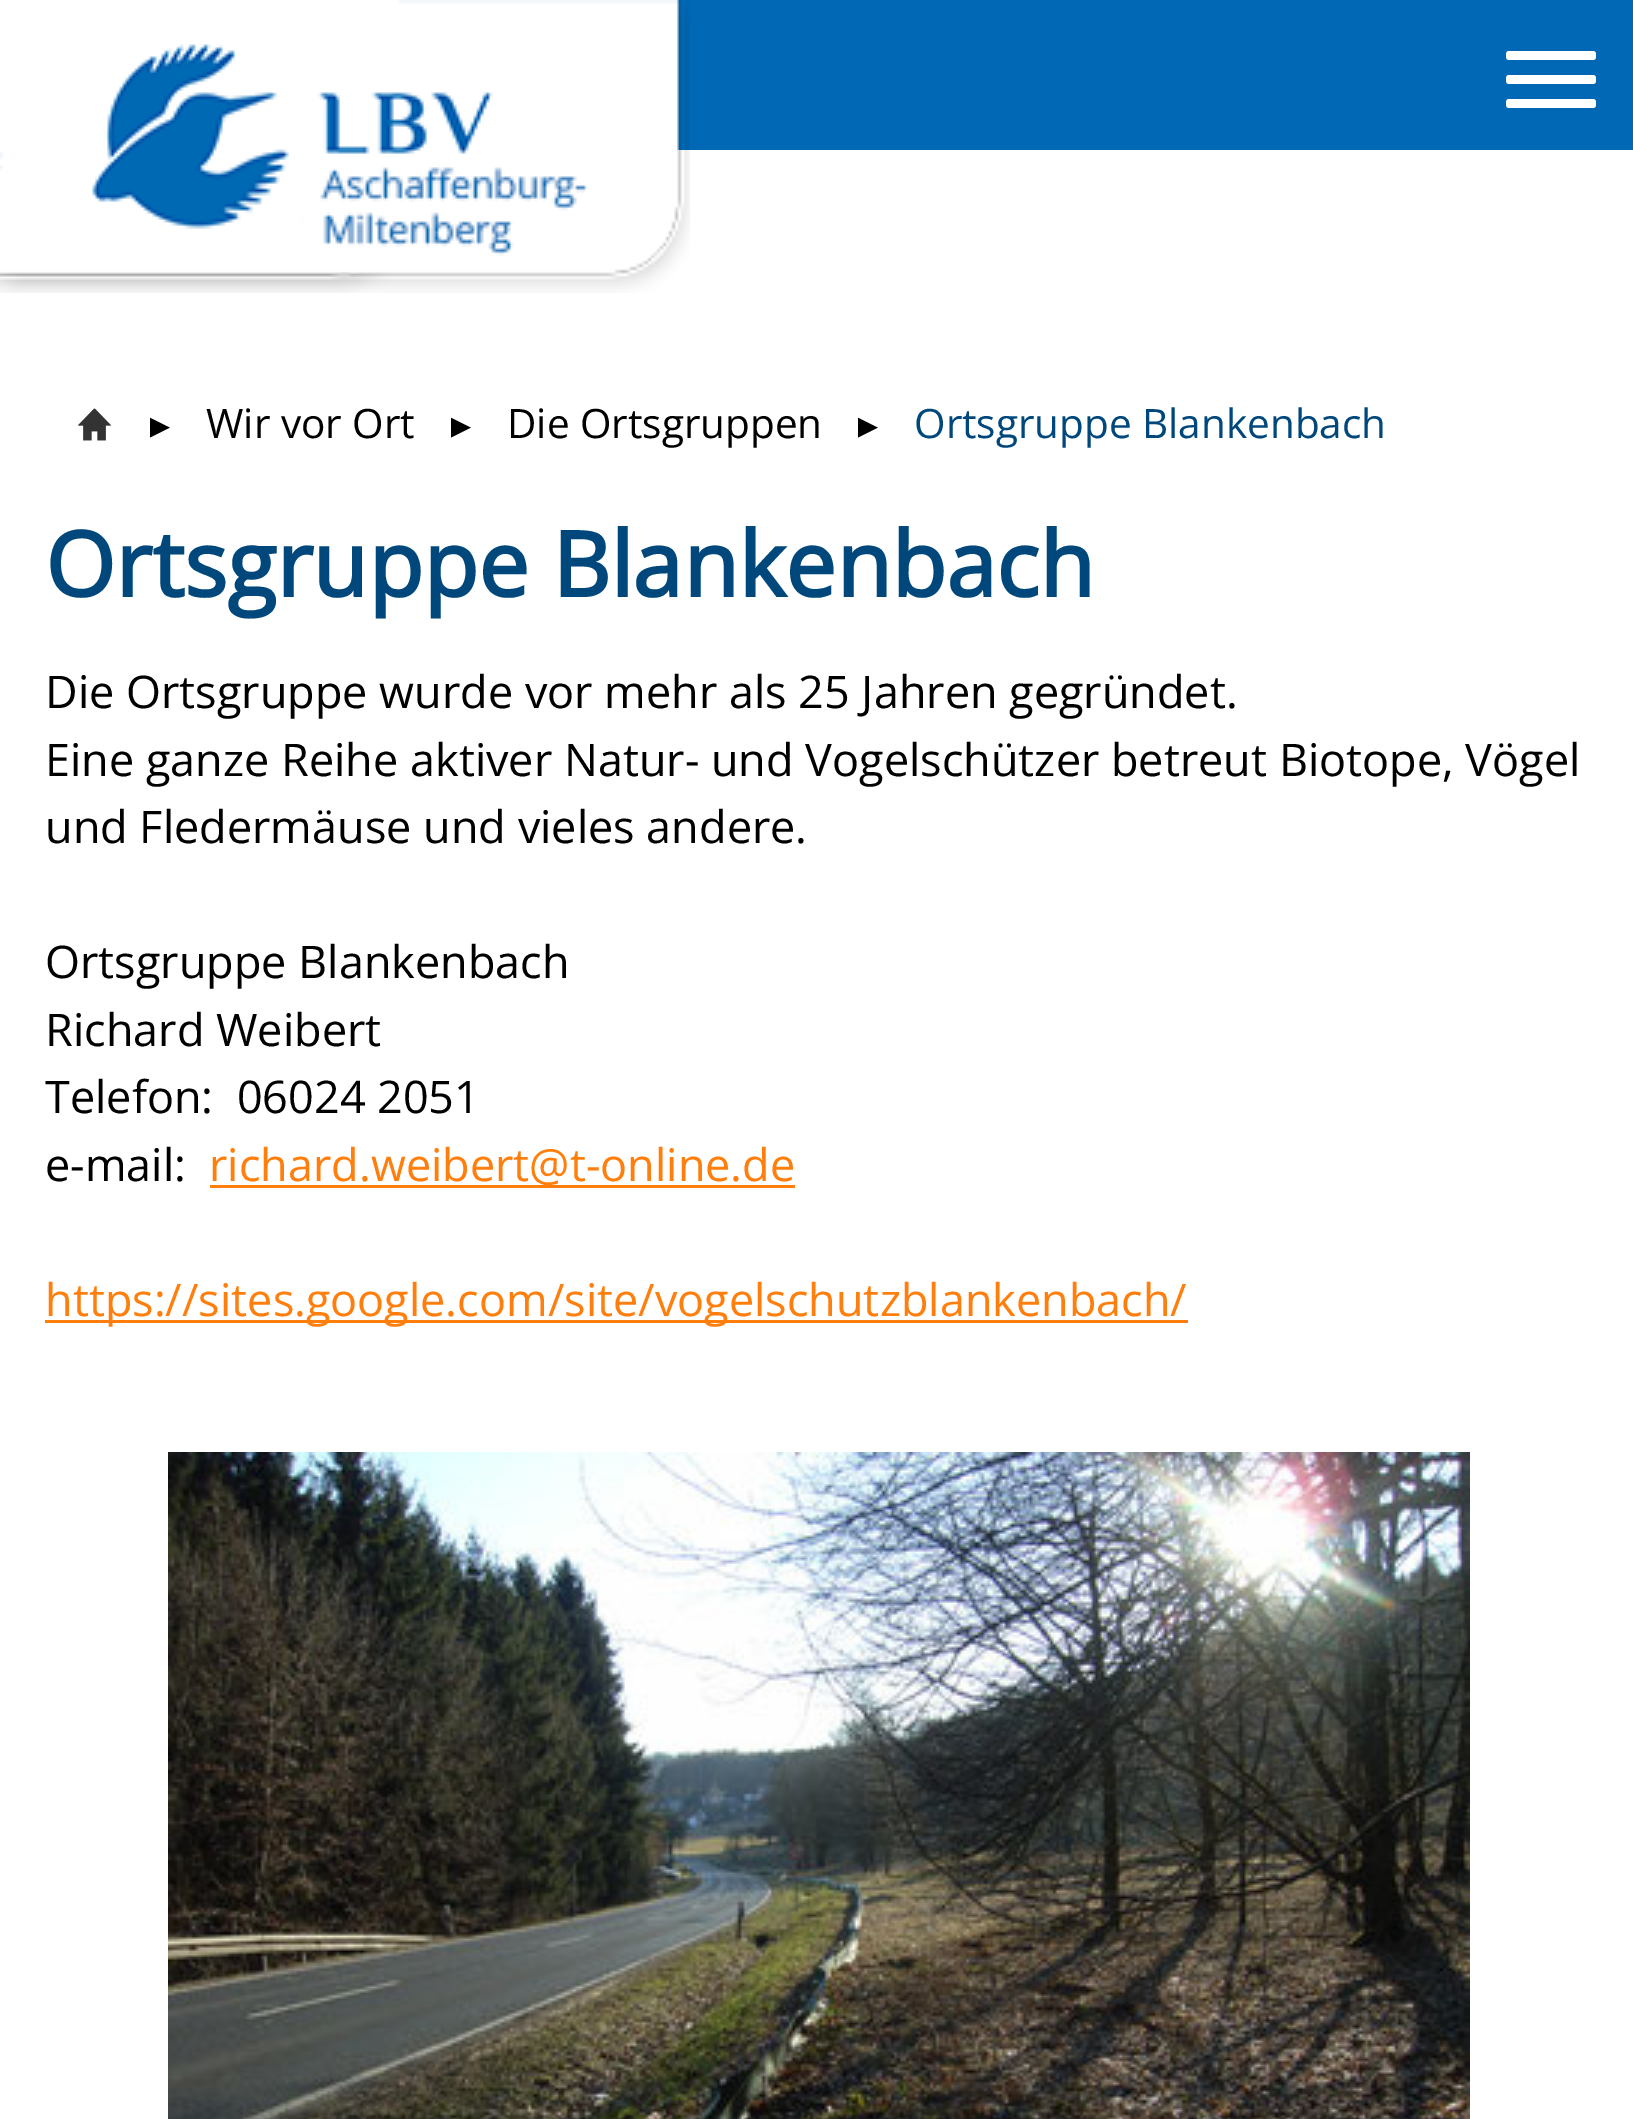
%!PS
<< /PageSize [1633 2119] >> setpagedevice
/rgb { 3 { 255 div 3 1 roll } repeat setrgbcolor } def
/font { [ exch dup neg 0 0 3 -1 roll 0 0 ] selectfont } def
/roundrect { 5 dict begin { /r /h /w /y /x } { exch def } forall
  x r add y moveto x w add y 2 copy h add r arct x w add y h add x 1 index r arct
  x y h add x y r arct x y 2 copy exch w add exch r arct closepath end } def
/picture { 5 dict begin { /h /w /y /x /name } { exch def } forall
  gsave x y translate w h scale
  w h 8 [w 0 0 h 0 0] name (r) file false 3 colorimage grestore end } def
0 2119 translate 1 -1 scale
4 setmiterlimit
255 255 255 rgb
0 0 1633 2119 rectfill
0 104 180 rgb
0 0 1633 150 rectfill
(img/1.rgb) 0 0 403 293 picture
(img/2.rgb) 0 0 690 293 picture
255 255 255 rgb
1506 51 90 9 3 roundrect fill
1506 75 90 9 3 roundrect fill
1506 99 90 9 3 roundrect fill
(img/3.rgb) 78 408 33 33 picture
255 126 12 rgb
210 1185 585 3 rectfill
45 1320 1143 3 rectfill
(img/4.rgb) 168 1452 1302 667 picture
/DejaVuSans-Regular 40 font
0 0 0 rgb
150 438 moveto (▸) show
/OpenSans-Regular 40.5 font
206 438 moveto (Wir vor Ort) show
/DejaVuSans-Regular 40 font
451 438 moveto (▸) show
/OpenSans-Regular 40.5 font
507 438 moveto (Die Ortsgruppen) show
/DejaVuSans-Regular 40 font
858 438 moveto (▸) show
/OpenSans-Regular 40.5 font
0 71 124 rgb
914 438 moveto (Ortsgruppe Blankenbach) show
/OpenSans-Bold 90 font
45 597 moveto (Ortsgruppe Blankenbach) show
/OpenSans-Regular 45 font
0 0 0 rgb
[
  [(Die Ortsgruppe wurde vor mehr als 25 Jahren gegründet.) 45 708]
  [(Eine ganze Reihe aktiver Natur- und Vogelschützer betreut Biotope, Vögel) 45 776]
  [(und Fledermäuse und vieles andere.) 45 843]
  [(Ortsgruppe Blankenbach) 45 978]
  [(Richard Weibert) 45 1046]
  [(Telefon:  06024 2051) 45 1113]
  [(e-mail:) 45 1181]
] { aload pop moveto show } forall
255 126 12 rgb
209 1181 moveto (richard.weibert@t-online.de) show
45 1316 moveto (https://sites.google.com/site/vogelschutzblankenbach/) show
showpage
